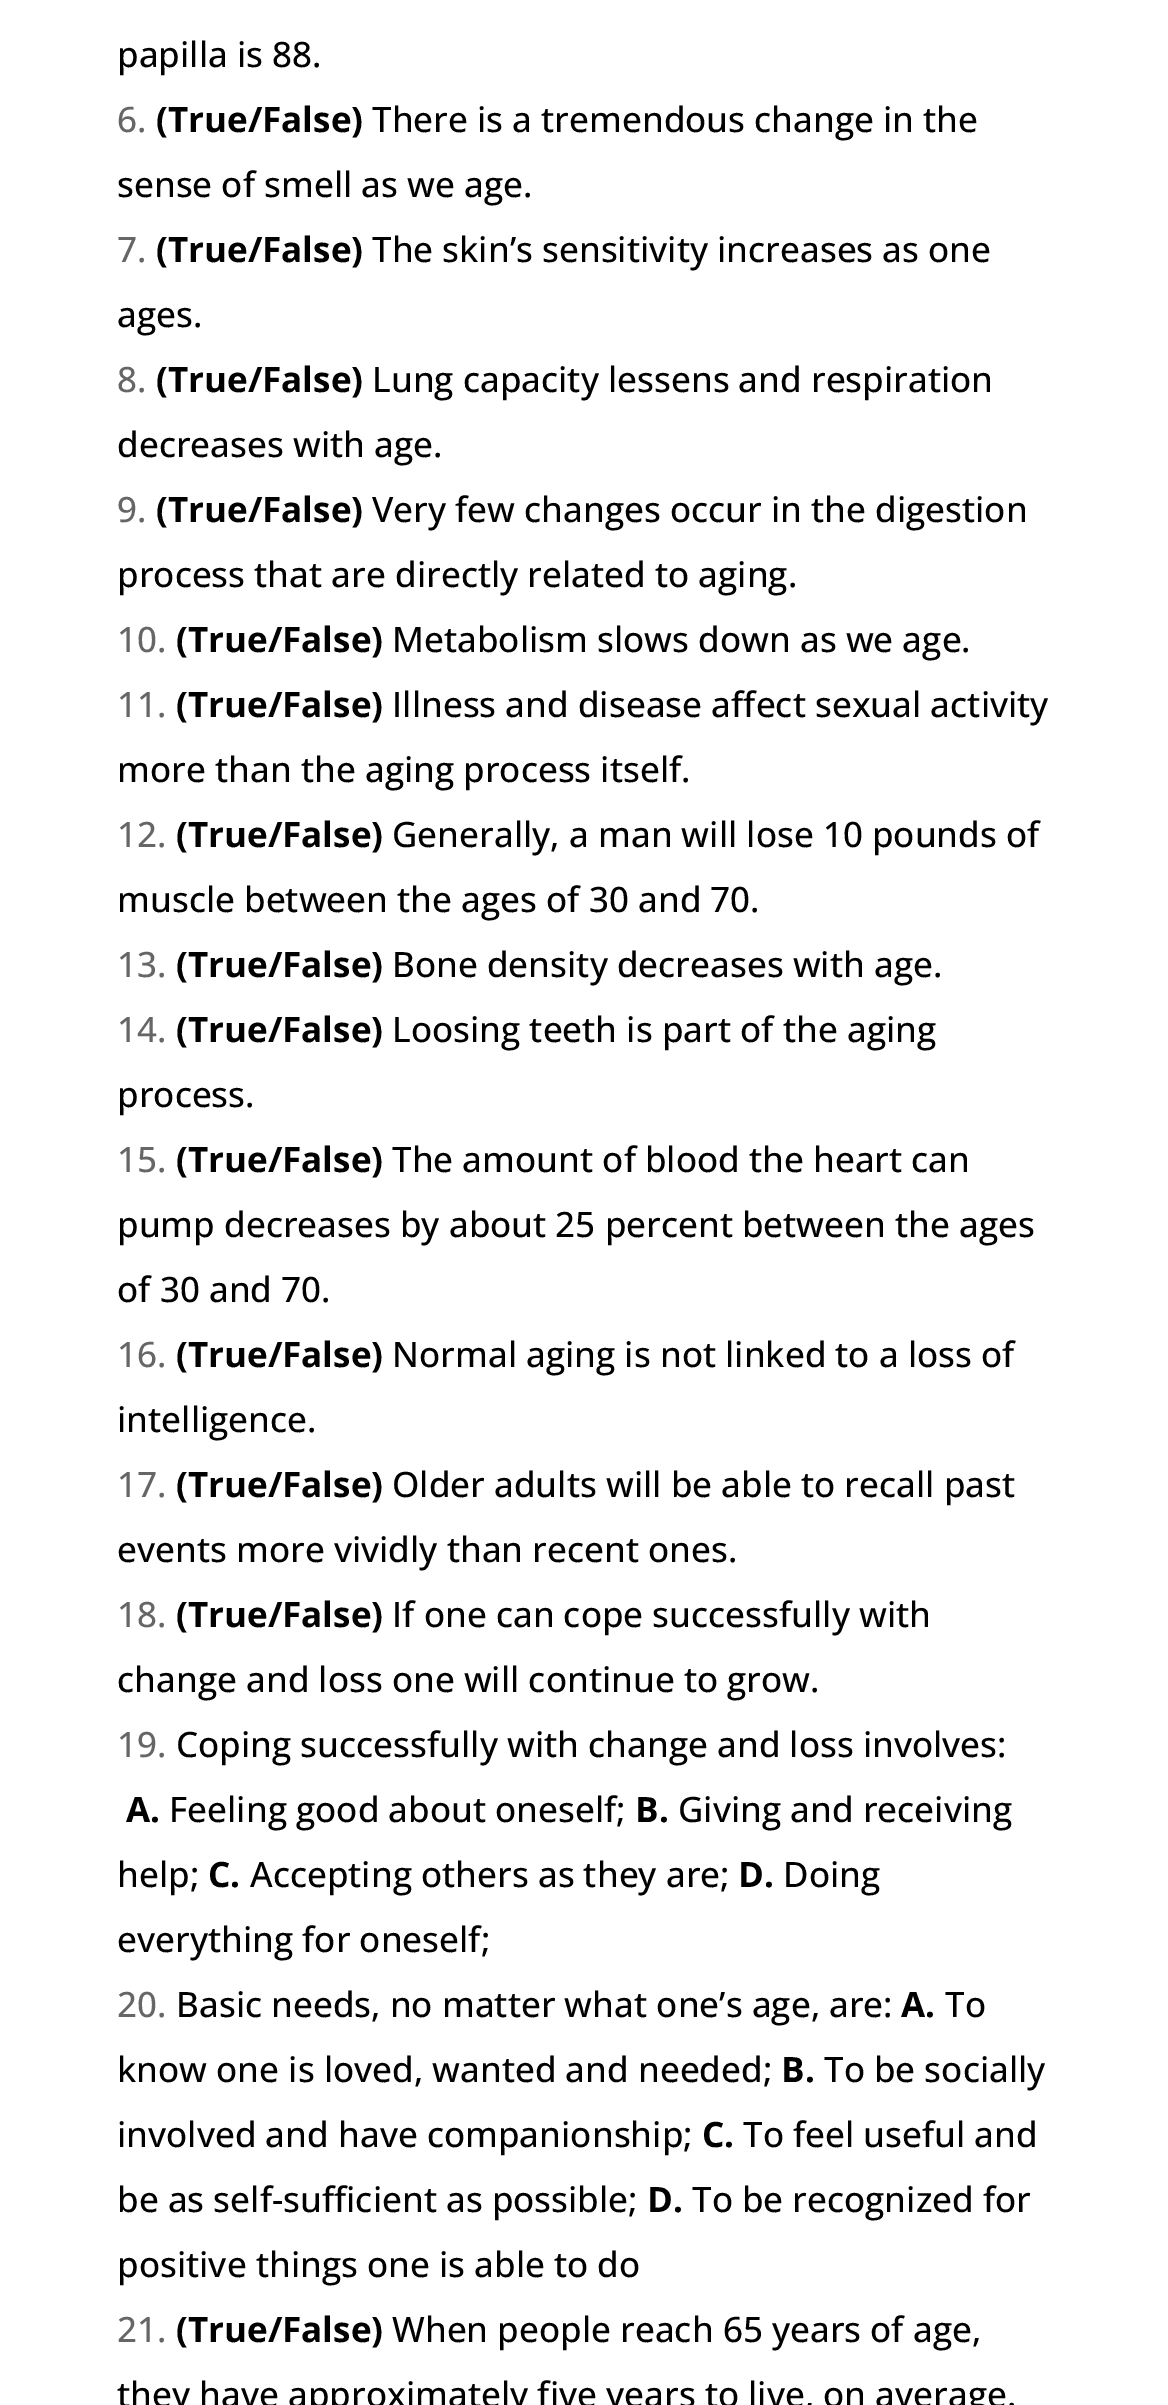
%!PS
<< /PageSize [1168 2405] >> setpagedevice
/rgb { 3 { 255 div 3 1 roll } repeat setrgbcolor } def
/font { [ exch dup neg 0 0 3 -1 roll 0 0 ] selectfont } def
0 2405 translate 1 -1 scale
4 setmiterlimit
255 255 255 rgb
0 0 1168 2405 rectfill
/OpenSans-Medium 35 font
0 0 0 rgb
117 67 moveto (papilla is 88.) show
102 102 102 rgb
117 132 moveto (6.) show
/OpenSans-Bold 35 font
0 0 0 rgb
156 132 moveto (\(True/False\)) show
/OpenSans-Medium 35 font
372 132 moveto (There is a tremendous change in the) show
117 197 moveto (sense of smell as we age.) show
102 102 102 rgb
117 262 moveto (7.) show
/OpenSans-Bold 35 font
0 0 0 rgb
156 262 moveto (\(True/False\)) show
/OpenSans-Medium 35 font
372 262 moveto (The skin’s sensitivity increases as one) show
117 327 moveto (ages.) show
102 102 102 rgb
117 392 moveto (8.) show
/OpenSans-Bold 35 font
0 0 0 rgb
156 392 moveto (\(True/False\)) show
/OpenSans-Medium 35 font
372 392 moveto (Lung capacity lessens and respiration) show
117 457 moveto (decreases with age.) show
102 102 102 rgb
117 522 moveto (9.) show
/OpenSans-Bold 35 font
0 0 0 rgb
156 522 moveto (\(True/False\)) show
/OpenSans-Medium 35 font
372 522 moveto (Very few changes occur in the digestion) show
117 587 moveto (process that are directly related to aging.) show
102 102 102 rgb
117 652 moveto (10.) show
/OpenSans-Bold 35 font
0 0 0 rgb
176 652 moveto (\(True/False\)) show
/OpenSans-Medium 35 font
392 652 moveto (Metabolism slows down as we age.) show
102 102 102 rgb
117 717 moveto (11.) show
/OpenSans-Bold 35 font
0 0 0 rgb
176 717 moveto (\(True/False\)) show
/OpenSans-Medium 35 font
392 717 moveto (Illness and disease affect sexual activity) show
117 782 moveto (more than the aging process itself.) show
102 102 102 rgb
117 847 moveto (12.) show
/OpenSans-Bold 35 font
0 0 0 rgb
176 847 moveto (\(True/False\)) show
/OpenSans-Medium 35 font
392 847 moveto (Generally, a man will lose 10 pounds of) show
117 912 moveto (muscle between the ages of 30 and 70.) show
102 102 102 rgb
117 977 moveto (13.) show
/OpenSans-Bold 35 font
0 0 0 rgb
176 977 moveto (\(True/False\)) show
/OpenSans-Medium 35 font
392 977 moveto (Bone density decreases with age.) show
102 102 102 rgb
117 1042 moveto (14.) show
/OpenSans-Bold 35 font
0 0 0 rgb
176 1042 moveto (\(True/False\)) show
/OpenSans-Medium 35 font
392 1042 moveto (Loosing teeth is part of the aging) show
117 1107 moveto (process.) show
102 102 102 rgb
117 1172 moveto (15.) show
/OpenSans-Bold 35 font
0 0 0 rgb
176 1172 moveto (\(True/False\)) show
/OpenSans-Medium 35 font
[
  [(The amount of blood the heart can) 392 1172]
  [(pump decreases by about 25 percent between the ages) 117 1237]
  [(of 30 and 70.) 117 1302]
] { aload pop moveto show } forall
102 102 102 rgb
117 1367 moveto (16.) show
/OpenSans-Bold 35 font
0 0 0 rgb
176 1367 moveto (\(True/False\)) show
/OpenSans-Medium 35 font
392 1367 moveto (Normal aging is not linked to a loss of) show
117 1432 moveto (intelligence.) show
102 102 102 rgb
117 1497 moveto (17.) show
/OpenSans-Bold 35 font
0 0 0 rgb
176 1497 moveto (\(True/False\)) show
/OpenSans-Medium 35 font
392 1497 moveto (Older adults will be able to recall past) show
117 1562 moveto (events more vividly than recent ones.) show
102 102 102 rgb
117 1627 moveto (18.) show
/OpenSans-Bold 35 font
0 0 0 rgb
176 1627 moveto (\(True/False\)) show
/OpenSans-Medium 35 font
392 1627 moveto (If one can cope successfully with) show
117 1692 moveto (change and loss one will continue to grow.) show
102 102 102 rgb
117 1757 moveto (19.) show
0 0 0 rgb
176 1757 moveto (Coping successfully with change and loss involves:) show
/OpenSans-Bold 35 font
126 1822 moveto (A.) show
/OpenSans-Medium 35 font
169 1822 moveto (Feeling good about oneself;) show
/OpenSans-Bold 35 font
635 1822 moveto (B.) show
/OpenSans-Medium 35 font
678 1822 moveto (Giving and receiving) show
117 1887 moveto (help;) show
/OpenSans-Bold 35 font
208 1887 moveto (C.) show
/OpenSans-Medium 35 font
250 1887 moveto (Accepting others as they are;) show
/OpenSans-Bold 35 font
738 1887 moveto (D.) show
/OpenSans-Medium 35 font
783 1887 moveto (Doing) show
117 1952 moveto (everything for oneself;) show
102 102 102 rgb
117 2017 moveto (20.) show
0 0 0 rgb
176 2017 moveto (Basic needs, no matter what one’s age, are:) show
/OpenSans-Bold 35 font
901 2017 moveto (A.) show
/OpenSans-Medium 35 font
945 2017 moveto (To) show
117 2082 moveto (know one is loved, wanted and needed;) show
/OpenSans-Bold 35 font
781 2082 moveto (B.) show
/OpenSans-Medium 35 font
824 2082 moveto (To be socially) show
117 2147 moveto (involved and have companionship;) show
/OpenSans-Bold 35 font
702 2147 moveto (C.) show
/OpenSans-Medium 35 font
743 2147 moveto (To feel useful and) show
117 2212 moveto (be as self-sufficient as possible;) show
/OpenSans-Bold 35 font
647 2212 moveto (D.) show
/OpenSans-Medium 35 font
692 2212 moveto (To be recognized for) show
117 2277 moveto (positive things one is able to do) show
102 102 102 rgb
117 2342 moveto (21.) show
/OpenSans-Bold 35 font
0 0 0 rgb
176 2342 moveto (\(True/False\)) show
/OpenSans-Medium 35 font
392 2342 moveto (When people reach 65 years of age,) show
117 2407 moveto (they have approximately five years to live, on average.) show
showpage
